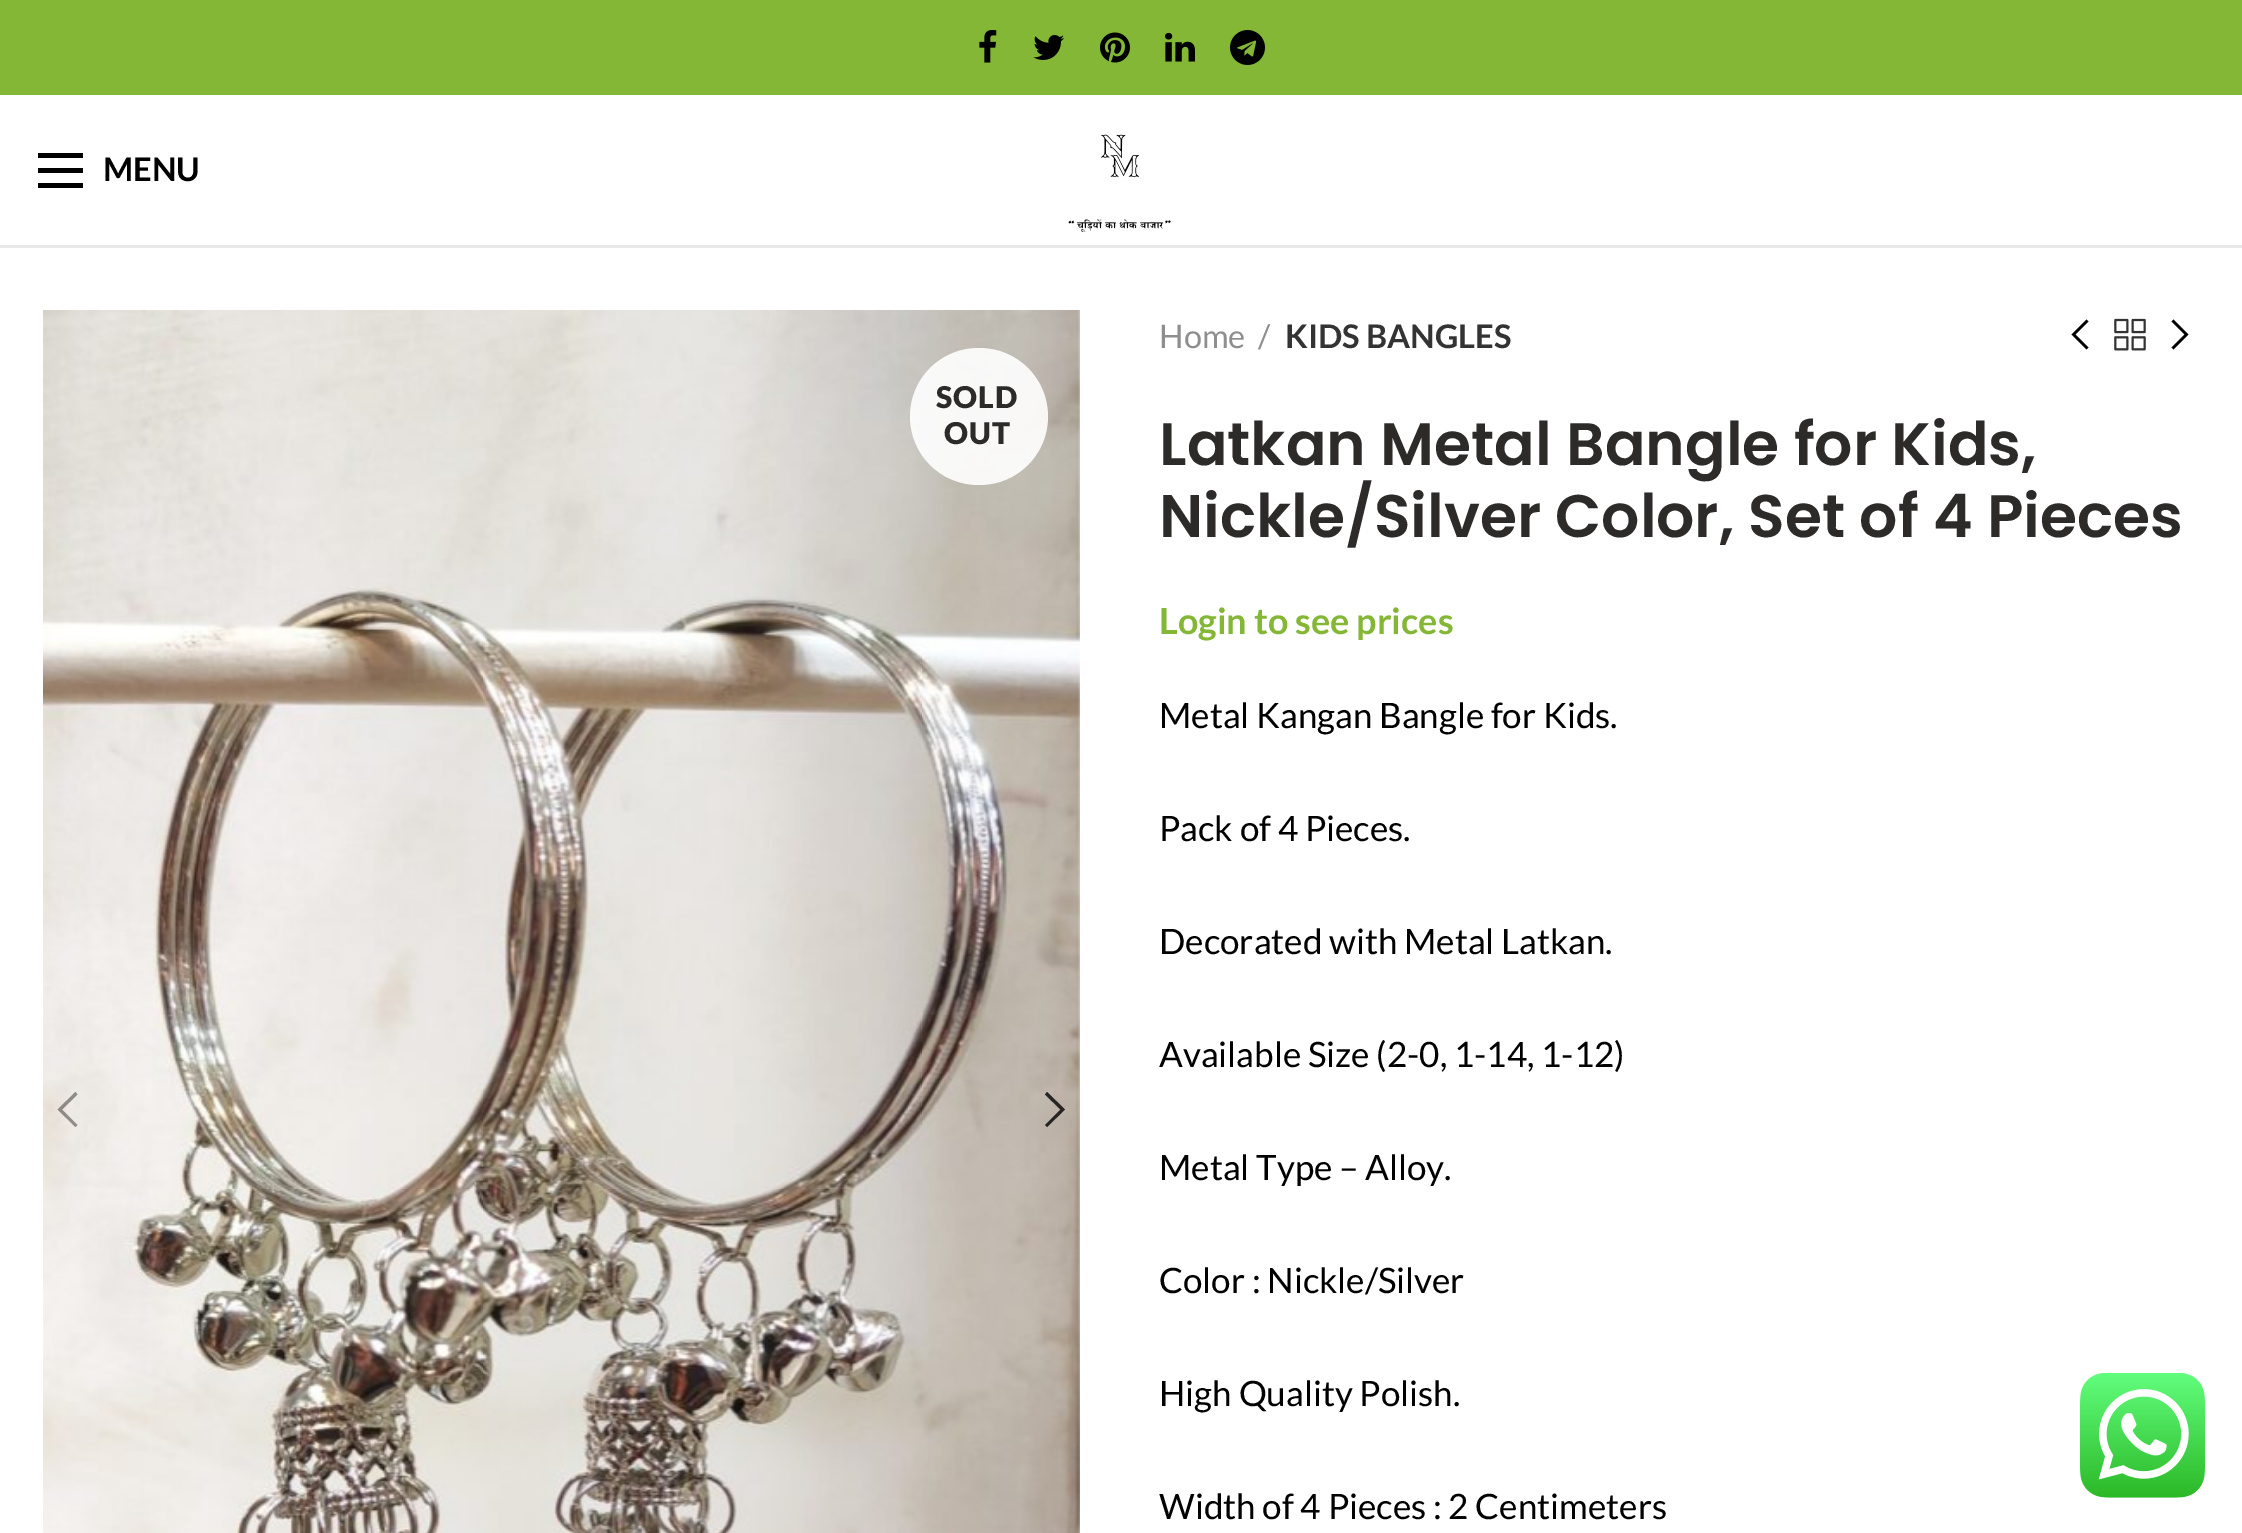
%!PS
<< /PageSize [2242 1533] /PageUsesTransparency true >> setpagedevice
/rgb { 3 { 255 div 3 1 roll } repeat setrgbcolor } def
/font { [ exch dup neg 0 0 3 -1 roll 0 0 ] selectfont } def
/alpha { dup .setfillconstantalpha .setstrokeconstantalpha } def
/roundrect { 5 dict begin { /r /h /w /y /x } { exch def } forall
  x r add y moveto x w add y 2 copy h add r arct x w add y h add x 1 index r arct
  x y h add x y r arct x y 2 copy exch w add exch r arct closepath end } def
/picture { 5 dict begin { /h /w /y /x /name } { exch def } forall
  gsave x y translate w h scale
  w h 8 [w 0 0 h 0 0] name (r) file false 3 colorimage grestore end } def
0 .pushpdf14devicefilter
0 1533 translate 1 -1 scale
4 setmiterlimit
255 255 255 rgb
0 0 2242 1533 rectfill
131 183 53 rgb
0 0 2242 95 rectfill
(img/1.rgb) 979 30 18 33 picture
(img/2.rgb) 1033 35 31 25 picture
(img/3.rgb) 1100 32 30 31 picture
(img/4.rgb) 1165 32 30 30 picture
(img/5.rgb) 1230 30 35 35 picture
[
  [0 245 2242 3 232 232 232]
  [38 168 45 5 0 0 0]
  [38 153 45 5 0 0 0]
  [38 183 45 5 0 0 0]
] { aload pop rgb rectfill } forall
(img/6.rgb) 1068 134 103 98 picture
(img/7.rgb) 43 310 1037 1223 picture
0.4 alpha
77.5 1094.5 moveto 62 1109.5 lineto 77.5 1125 lineto 75.5 1127 lineto 57.5 1109.5 lineto 75.5 1092 lineto closepath fill
0.8 alpha
1047 1092 moveto 1065 1109.5 lineto 1047 1127 lineto 1045 1125 lineto 1060.5 1109.5 lineto 1045 1094.5 lineto closepath fill
0.9 alpha
255 255 255 rgb
910 348 138 137 68.5 roundrect fill
1 alpha
0 0 0 rgb
2088.5 321.5 moveto 2075.5 334.5 lineto 2088.5 347.5 lineto 2086.5 349.5 lineto 2071.5 334.5 lineto 2086.5 319.5 lineto closepath fill
(img/8.rgb) 2114 318 32 33 picture
2173.5 319.5 moveto 2188.5 334.5 lineto 2173.5 349.5 lineto 2171.5 347.5 lineto 2184.5 334.5 lineto 2171.5 321.5 lineto closepath fill
(img/9.rgb) 2080 1373 125 125 picture
/Lato-Bold 32.5 font
103 181 moveto (MENU) show
/Lato-Black 30 font
45 42 42 rgb
936 408 moveto 1 0 (SOLD) ashow
944 444 moveto 1 0 (OUT) ashow
/Lato-Regular 32.5 font
142 142 142 rgb
1159 348 moveto (Home) show
1258 348 moveto (/) show
/Lato-Bold 32.5 font
51 51 51 rgb
1285 348 moveto (KIDS BANGLES) show
/Poppins-SemiBold 60 font
45 42 42 rgb
1159 465 moveto (Latkan Metal Bangle for Kids,) show
1159 537 moveto (Nickle/Silver Color, Set of 4 Pieces) show
/Lato-Bold 36 font
131 183 53 rgb
1159 634 moveto (Login to see prices) show
/Lato-Regular 35 font
0 0 0 rgb
[
  [(Metal Kangan Bangle for Kids.) 1159 728]
  [(Pack of 4 Pieces.) 1159 841]
  [(Decorated with Metal Latkan.) 1159 954]
  [(Available Size \(2-0, 1-14, 1-12\)) 1159 1067]
  [(Metal Type – Alloy.) 1159 1180]
  [(Color : Nickle/Silver) 1159 1293]
  [(High Quality Polish.) 1159 1406]
  [(Width of 4 Pieces : 2 Centimeters) 1159 1519]
] { aload pop moveto show } forall
.poppdf14devicefilter showpage
